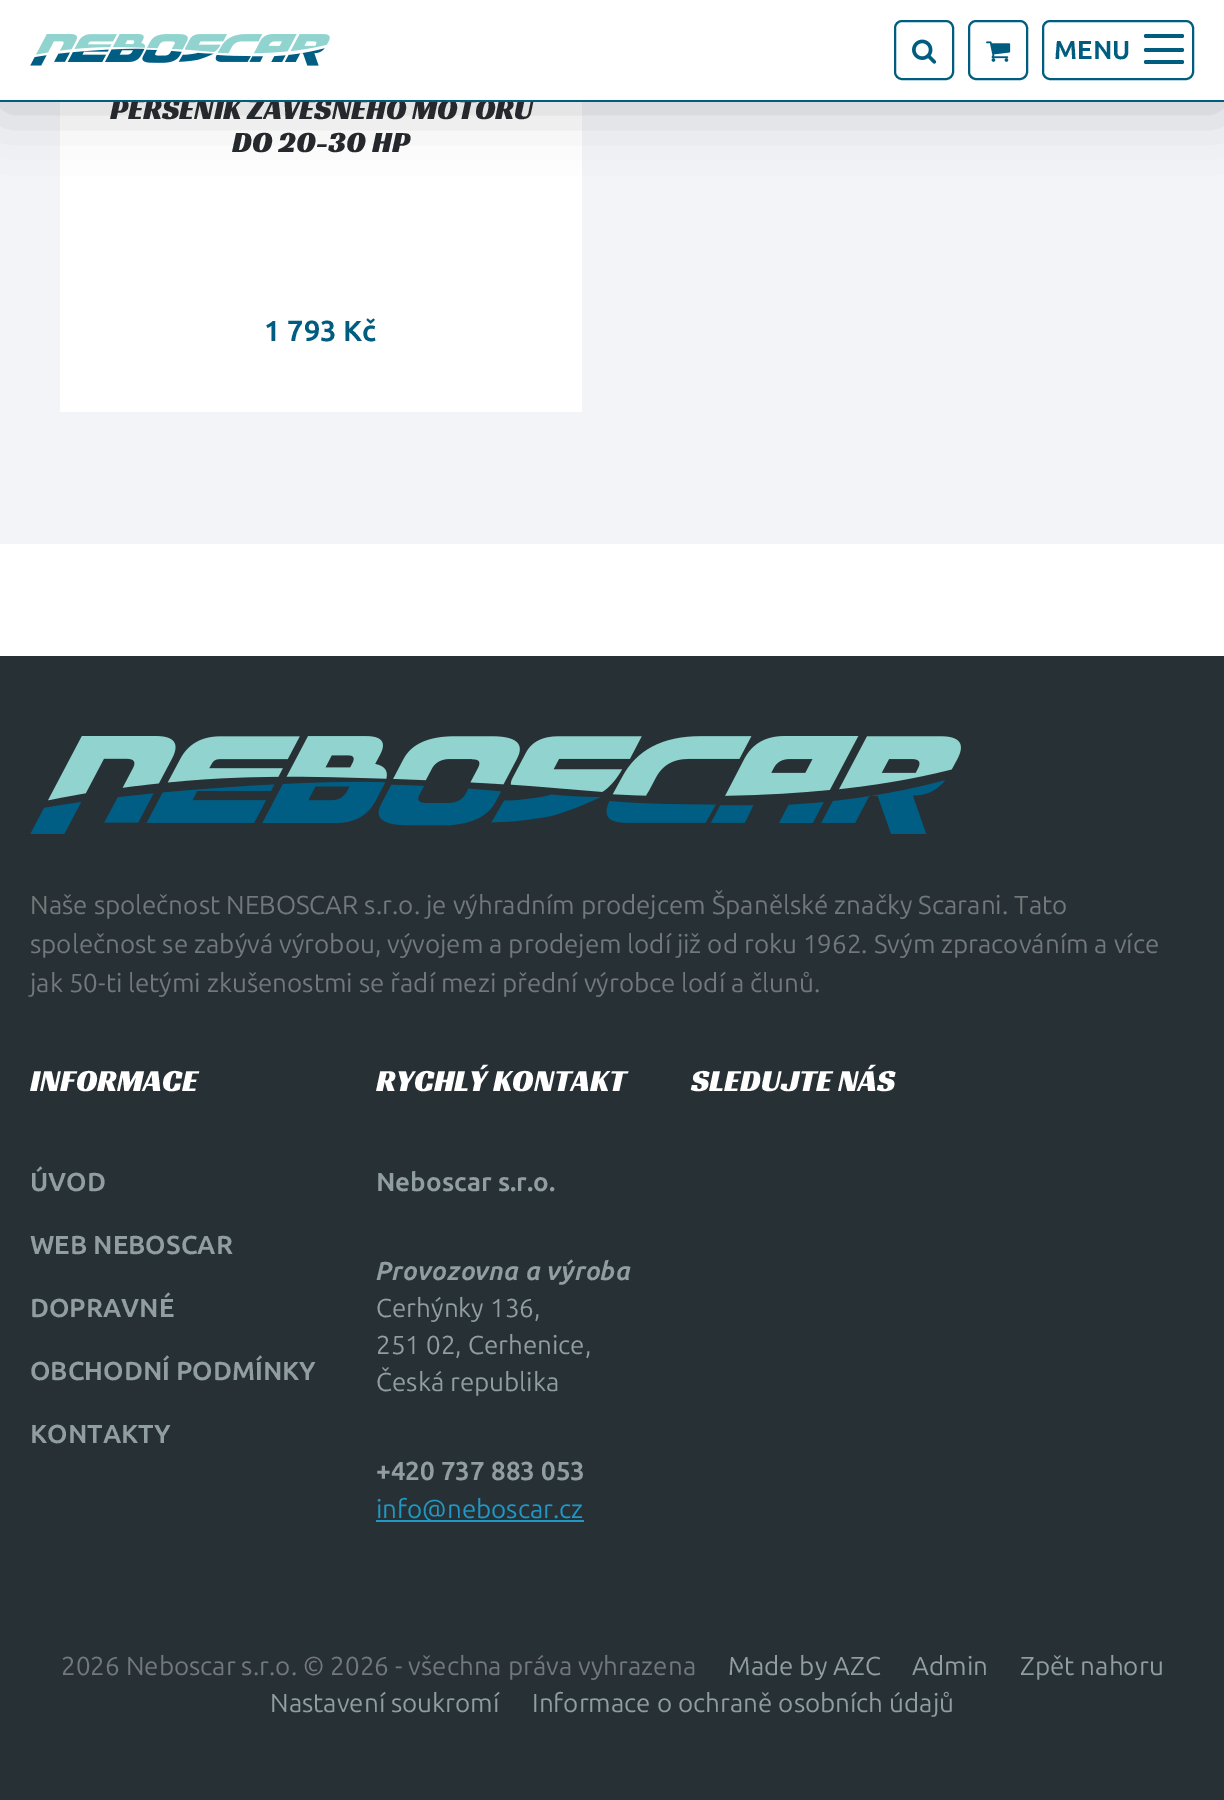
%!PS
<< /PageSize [1224 1800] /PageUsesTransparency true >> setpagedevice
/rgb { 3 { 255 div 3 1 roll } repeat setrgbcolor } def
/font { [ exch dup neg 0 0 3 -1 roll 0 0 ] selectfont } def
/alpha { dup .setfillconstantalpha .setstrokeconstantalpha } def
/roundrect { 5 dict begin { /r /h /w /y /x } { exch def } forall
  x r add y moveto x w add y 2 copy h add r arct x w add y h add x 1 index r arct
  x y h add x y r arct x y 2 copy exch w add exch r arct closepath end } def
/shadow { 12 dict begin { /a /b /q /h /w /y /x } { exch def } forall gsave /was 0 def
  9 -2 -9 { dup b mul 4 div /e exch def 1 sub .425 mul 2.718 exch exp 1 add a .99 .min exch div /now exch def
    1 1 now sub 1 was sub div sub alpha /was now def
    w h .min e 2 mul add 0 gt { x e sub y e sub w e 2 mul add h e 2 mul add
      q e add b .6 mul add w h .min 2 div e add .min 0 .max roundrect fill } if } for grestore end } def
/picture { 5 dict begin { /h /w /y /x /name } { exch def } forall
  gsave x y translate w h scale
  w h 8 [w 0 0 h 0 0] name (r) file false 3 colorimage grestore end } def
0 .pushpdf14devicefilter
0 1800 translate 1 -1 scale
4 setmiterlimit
255 255 255 rgb
0 0 1224 1800 rectfill
242 244 248 rgb
0 102 1224 442 rectfill
255 255 255 rgb
60 102 522 310 rectfill
0 0 0 rgb
0 6 1224 102 0 30 0.2 shadow
39 48 52 rgb
0 656 1224 1144 rectfill
(img/4.rgb) 30 736 931 98 picture
32 151 196 rgb
376 1520 208 2 rectfill
/RacingSansOne-Regular 29.9 font
37 40 44 rgb
110 119 moveto (PERSENIK ZÁVĚSNÉHO MOTORU) show
255 255 255 rgb
0 0 1224 100 rectfill
0 93 128 rgb
2 setlinewidth
895 21 58 58 7 roundrect stroke
(img/2.rgb) 912 39 25 25 picture
969 21 58 58 7 roundrect stroke
(img/3.rgb) 986 41 25 21 picture
1043 21 150 58 7 roundrect stroke
1144 60 40 4 2 roundrect fill
1144 48 40 4 2 roundrect fill
1144 34 40 4 2 roundrect fill
/Ubuntu-Bold 26 font
1054 59 moveto (MENU) show
(img/1.rgb) 30 34 300 32 picture
0 100 1224 2 rectfill
/RacingSansOne-Regular 29.9 font
37 40 44 rgb
232 152 moveto (DO 20-30 HP) show
/Ubuntu-Bold 29 font
0 93 128 rgb
264 341 moveto (1 793 Kč) show
/Ubuntu-Regular 26 font
114 120 123 rgb
[
  [(Naše společnost NEBOSCAR s.r.o. je výhradním prodejcem Španělské značky Scarani. Tato) 30 914]
  [(společnost se zabývá výrobou, vývojem a prodejem lodí již od roku 1962. Svým zpracováním a více) 30 953]
  [(jak 50-ti letými zkušenostmi se řadí mezi přední výrobce lodí a člunů.) 30 992]
] { aload pop moveto show } forall
/RacingSansOne-Regular 31.25 font
255 255 255 rgb
30 1091 moveto (INFORMACE) show
/Ubuntu-Bold 26 font
144 157 163 rgb
[
  [(ÚVOD) 30 1191]
  [(WEB NEBOSCAR) 30 1254]
  [(DOPRAVNÉ) 30 1317]
  [(OBCHODNÍ PODMÍNKY) 30 1380]
  [(KONTAKTY) 30 1443]
] { aload pop moveto show } forall
/RacingSansOne-Regular 31.25 font
255 255 255 rgb
376 1091 moveto (RYCHLÝ KONTAKT) show
/Ubuntu-Bold 26 font
144 157 163 rgb
376 1191 moveto (Neboscar s.r.o.) show
/Ubuntu-BoldItalic 26 font
376 1280 moveto (Provozovna a výroba) show
/Ubuntu-Regular 26 font
[
  [(Cerhýnky 136,) 376 1317]
  [(251 02, Cerhenice,) 376 1354]
  [(Česká republika) 376 1391]
] { aload pop moveto show } forall
/Ubuntu-Bold 26 font
376 1480 moveto (+420 737 883 053) show
/Ubuntu-Regular 26 font
32 151 196 rgb
376 1518 moveto (info@neboscar.cz) show
/RacingSansOne-Regular 31.25 font
255 255 255 rgb
691 1091 moveto (SLEDUJTE NÁS) show
/Ubuntu-Regular 26 font
114 120 123 rgb
61 1675 moveto (2026 Neboscar s.r.o. © 2026 - všechna práva vyhrazena) show
144 157 163 rgb
[
  [(Made by AZC) 728 1675]
  [(Admin) 912 1675]
  [(Zpět nahoru) 1020 1675]
  [(Nastavení soukromí) 270 1712]
  [(Informace o ochraně osobních údajů) 532 1712]
] { aload pop moveto show } forall
.poppdf14devicefilter showpage
